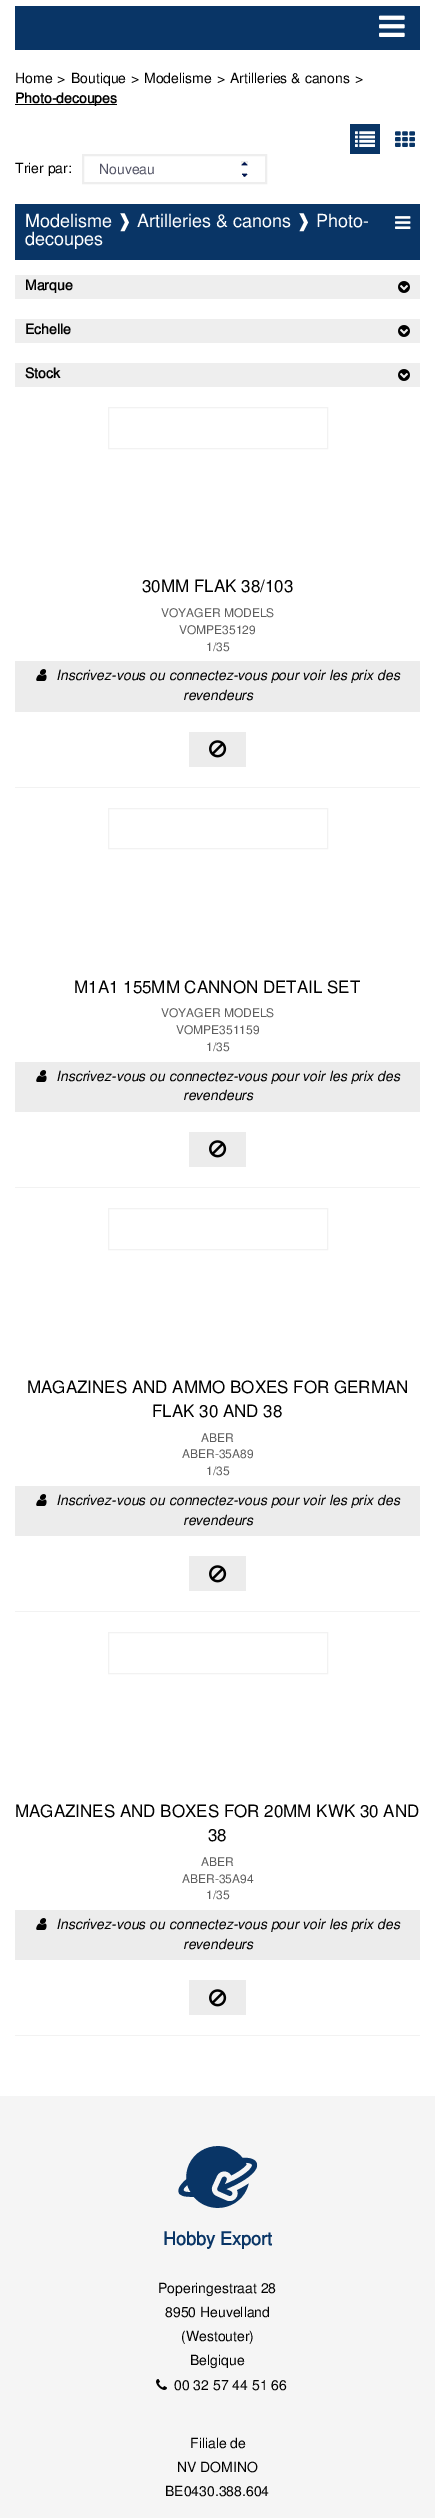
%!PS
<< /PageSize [435 2518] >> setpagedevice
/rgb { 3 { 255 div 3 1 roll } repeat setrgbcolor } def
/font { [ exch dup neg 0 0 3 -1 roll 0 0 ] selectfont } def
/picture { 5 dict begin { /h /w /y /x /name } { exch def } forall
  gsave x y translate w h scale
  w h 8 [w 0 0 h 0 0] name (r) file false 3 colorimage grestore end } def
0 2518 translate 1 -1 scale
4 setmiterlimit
255 255 255 rgb
0 0 435 2518 rectfill
9 53 102 rgb
15 6 405 44 rectfill
(img/1.rgb) 379 15 26 22 picture
0 0 0 rgb
15 104 102 1 rectfill
9 53 102 rgb
350 124 30 30 rectfill
(img/2.rgb) 355 131 20 16 picture
(img/3.rgb) 395 131 20 16 picture
(img/4.rgb) 241 161 7 16 picture
238 238 238 rgb
2 setlinewidth
83 155 183 28 rectstroke
9 53 102 rgb
15 204 405 56 rectfill
(img/5.rgb) 395 216 16 13 picture
238 238 238 rgb
15 275 405 24 rectfill
(img/6.rgb) 398 281 12 12 picture
15 319 405 24 rectfill
(img/6.rgb) 398 325 12 12 picture
15 363 405 24 rectfill
(img/6.rgb) 398 369 12 12 picture
242 242 242 rgb
15 787 405 1 rectfill
1 setlinewidth
108.5 407.5 219 41 rectstroke
236 236 236 rgb
15 661 405 51 rectfill
(img/7.rgb) 36 669 11 12 picture
189 732 57 35 rectfill
(img/8.rgb) 209 740 18 18 picture
242 242 242 rgb
15 1187 405 1 rectfill
108.5 808.5 219 40 rectstroke
236 236 236 rgb
15 1062 405 50 rectfill
(img/7.rgb) 36 1070 11 12 picture
189 1132 57 35 rectfill
(img/8.rgb) 209 1140 18 18 picture
242 242 242 rgb
15 1611 405 1 rectfill
108.5 1208.5 219 41 rectstroke
236 236 236 rgb
15 1486 405 50 rectfill
(img/7.rgb) 36 1494 11 12 picture
189 1556 57 35 rectfill
(img/8.rgb) 209 1565 18 18 picture
242 242 242 rgb
15 2035 405 1 rectfill
108.5 1632.5 219 41 rectstroke
236 236 236 rgb
15 1910 405 50 rectfill
(img/7.rgb) 36 1918 11 12 picture
189 1980 57 35 rectfill
(img/8.rgb) 209 1989 18 18 picture
245 245 245 rgb
0 2096 435 422 rectfill
(img/9.rgb) 178 2146 80 62 picture
(img/10.rgb) 156 2379 11 11 picture
/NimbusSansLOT-Regular 14 font
0 0 0 rgb
[
  [(Home) 15 83]
  [(>) 57 83]
  [(Boutique) 71 83]
  [(>) 131 83]
  [(Modelisme) 144 83]
  [(>) 217 83]
  [(Artilleries & canons) 230 83]
  [(>) 355 83]
] { aload pop moveto show } forall
/NimbusSansLOT-Bold 14 font
15 103 moveto (Photo-decoupes) show
/NimbusSansLOT-Regular 14 font
15 173 moveto (Trier par:) show
84 85 103 rgb
99 174 moveto (Nouveau) show
/NimbusSansLOT-Regular 18 font
255 255 255 rgb
25 227 moveto (Modelisme) show
/DejaVuSans-Regular 18 font
117 227 moveto (❱) show
/NimbusSansLOT-Regular 18 font
137 227 moveto (Artilleries & canons) show
/DejaVuSans-Regular 18 font
296 227 moveto (❱) show
/NimbusSansLOT-Regular 18 font
316 227 moveto (Photo-) show
25 245 moveto (decoupes) show
/NimbusSansLOT-Bold 14 font
0 0 0 rgb
[
  [(Marque) 25 290]
  [(Echelle) 25 334]
  [(Stock) 25 378]
] { aload pop moveto show } forall
/NimbusSansLOT-Regular 17 font
142 592 moveto (30MM FLAK 38/103) show
/NimbusSansLOT-Regular 12 font
94 94 94 rgb
[
  [(VOYAGER MODELS) 161 617]
  [(VOMPE35129) 179 634]
  [(1/35) 206 651]
] { aload pop moveto show } forall
/NimbusSansLOT-Italic 14 font
0 0 0 rgb
56 680 moveto (Inscrivez-vous ou connectez-vous pour voir les prix des) show
183 700 moveto (revendeurs) show
/NimbusSansLOT-Regular 17 font
74 993 moveto (M1A1 155MM CANNON DETAIL SET) show
/NimbusSansLOT-Regular 12 font
94 94 94 rgb
[
  [(VOYAGER MODELS) 161 1017]
  [(VOMPE351159) 176 1034]
  [(1/35) 206 1051]
] { aload pop moveto show } forall
/NimbusSansLOT-Italic 14 font
0 0 0 rgb
56 1081 moveto (Inscrivez-vous ou connectez-vous pour voir les prix des) show
183 1100 moveto (revendeurs) show
/NimbusSansLOT-Regular 17 font
27 1393 moveto (MAGAZINES AND AMMO BOXES FOR GERMAN) show
152 1417 moveto (FLAK 30 AND 38) show
/NimbusSansLOT-Regular 12 font
94 94 94 rgb
[
  [(ABER) 201 1442]
  [(ABER-35A89) 182 1458]
  [(1/35) 206 1475]
] { aload pop moveto show } forall
/NimbusSansLOT-Italic 14 font
0 0 0 rgb
56 1505 moveto (Inscrivez-vous ou connectez-vous pour voir les prix des) show
183 1525 moveto (revendeurs) show
/NimbusSansLOT-Regular 17 font
15 1817 moveto (MAGAZINES AND BOXES FOR 20MM KWK 30 AND) show
208 1841 moveto (38) show
/NimbusSansLOT-Regular 12 font
94 94 94 rgb
[
  [(ABER) 201 1866]
  [(ABER-35A94) 182 1883]
  [(1/35) 206 1899]
] { aload pop moveto show } forall
/NimbusSansLOT-Italic 14 font
0 0 0 rgb
56 1929 moveto (Inscrivez-vous ou connectez-vous pour voir les prix des) show
183 1949 moveto (revendeurs) show
/NimbusSansLOT-Bold 18 font
9 53 102 rgb
163 2245 moveto (Hobby Export) show
/NimbusSansLOT-Regular 14 font
0 0 0 rgb
[
  [(Poperingestraat 28) 158 2293]
  [(8950 Heuvelland) 165 2317]
  [(\(Westouter\)) 181 2341]
  [(Belgique) 190 2365]
  [(00 32 57 44 51 66) 174 2390]
  [(Filiale de) 190 2448]
  [(NV DOMINO) 177 2472]
  [(BE0430.388.604) 165 2496]
] { aload pop moveto show } forall
showpage
